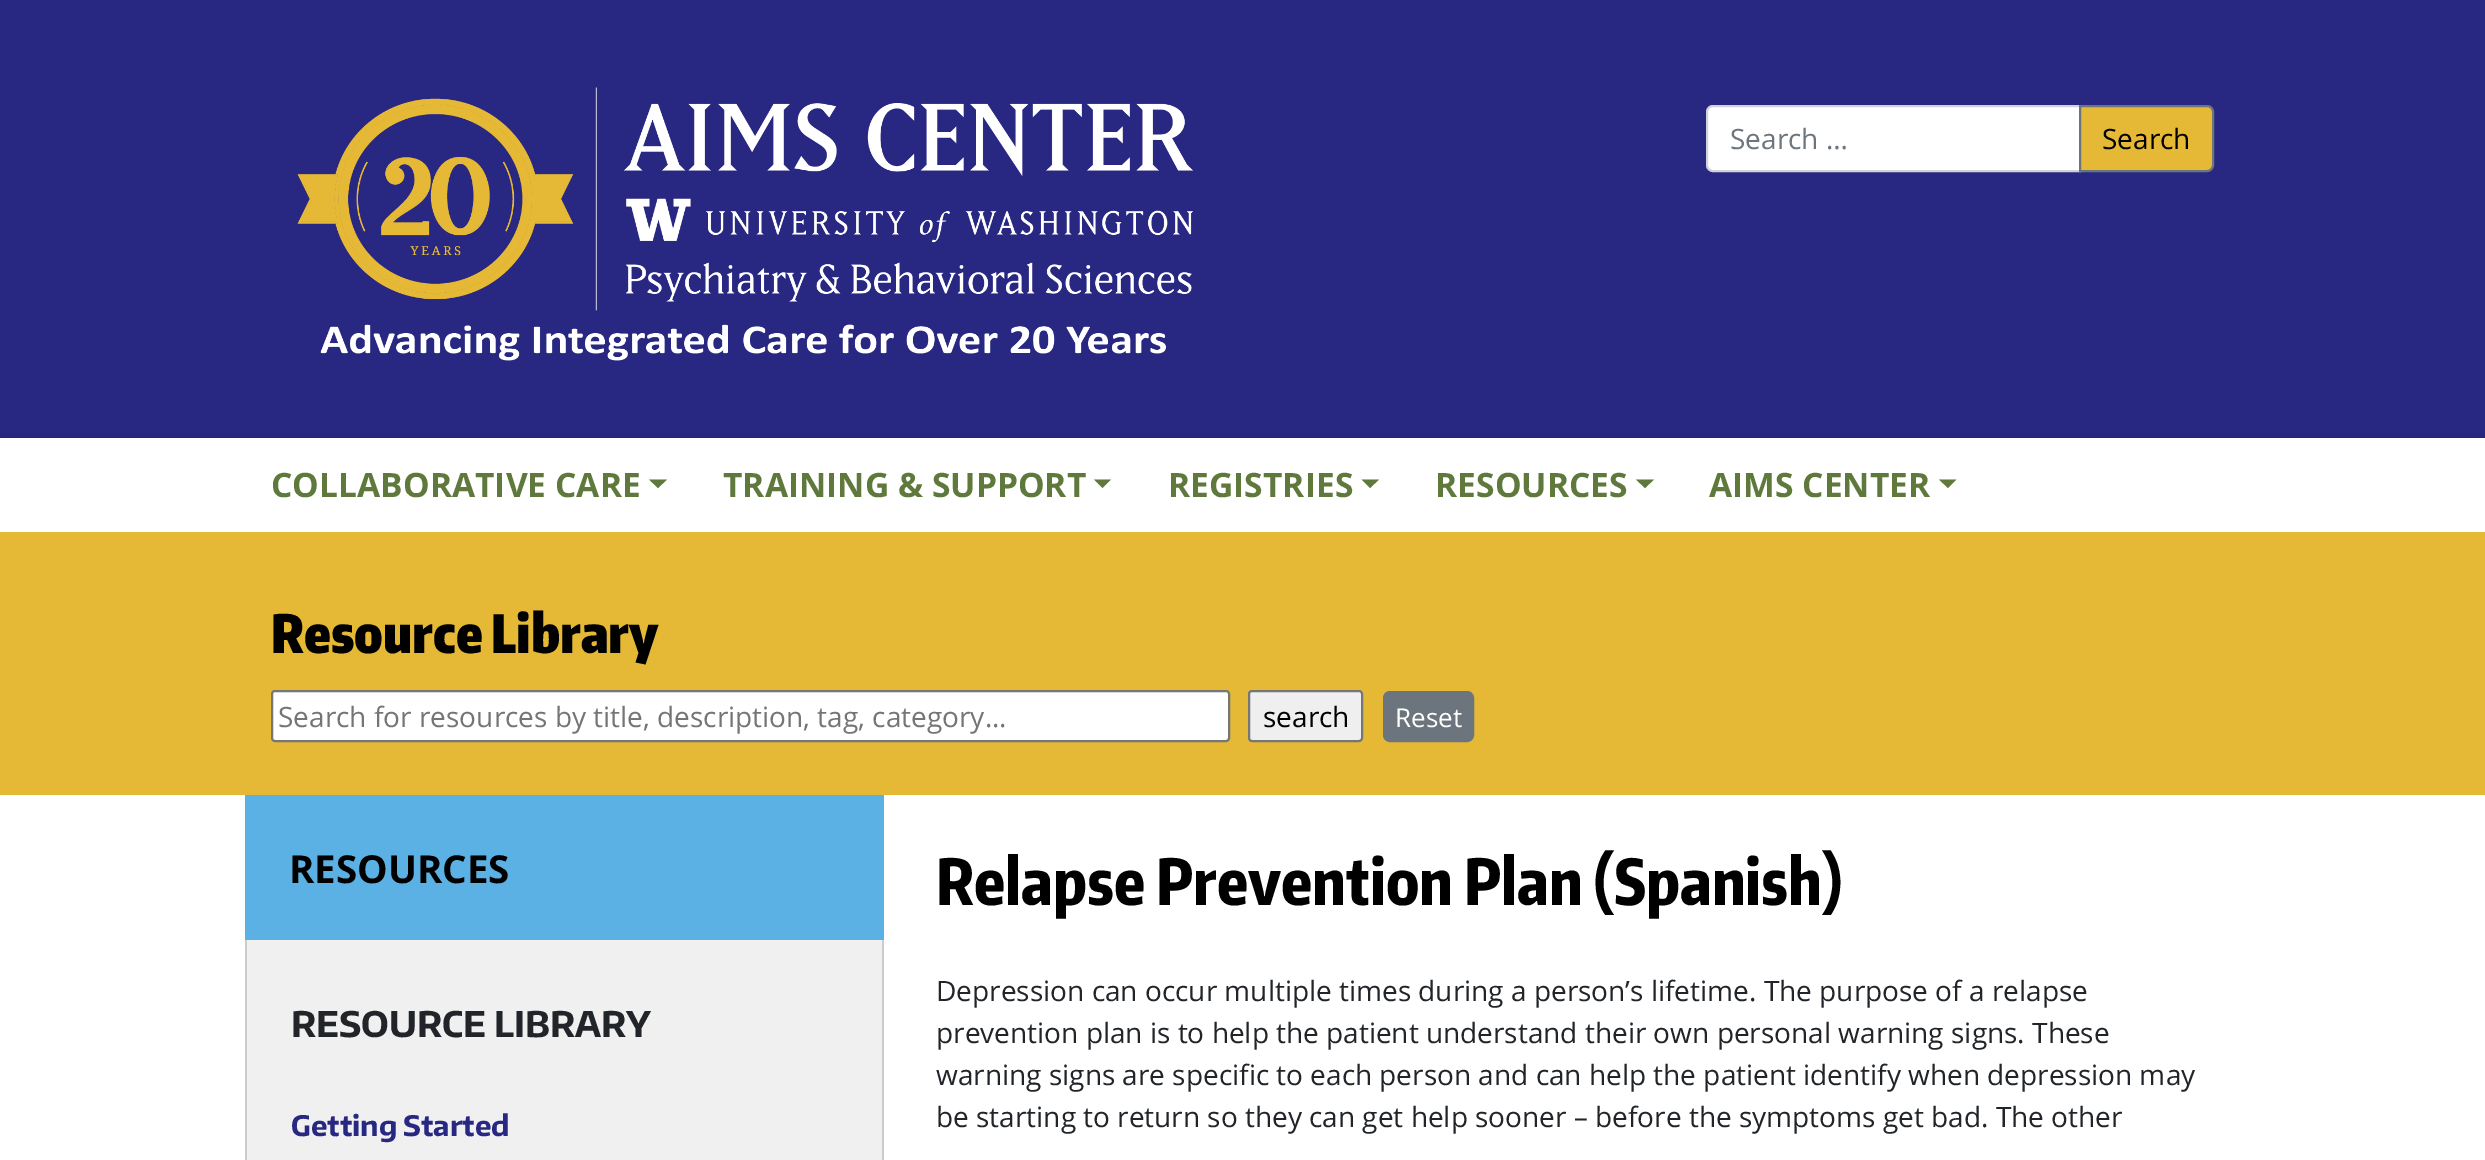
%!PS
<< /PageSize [2485 1160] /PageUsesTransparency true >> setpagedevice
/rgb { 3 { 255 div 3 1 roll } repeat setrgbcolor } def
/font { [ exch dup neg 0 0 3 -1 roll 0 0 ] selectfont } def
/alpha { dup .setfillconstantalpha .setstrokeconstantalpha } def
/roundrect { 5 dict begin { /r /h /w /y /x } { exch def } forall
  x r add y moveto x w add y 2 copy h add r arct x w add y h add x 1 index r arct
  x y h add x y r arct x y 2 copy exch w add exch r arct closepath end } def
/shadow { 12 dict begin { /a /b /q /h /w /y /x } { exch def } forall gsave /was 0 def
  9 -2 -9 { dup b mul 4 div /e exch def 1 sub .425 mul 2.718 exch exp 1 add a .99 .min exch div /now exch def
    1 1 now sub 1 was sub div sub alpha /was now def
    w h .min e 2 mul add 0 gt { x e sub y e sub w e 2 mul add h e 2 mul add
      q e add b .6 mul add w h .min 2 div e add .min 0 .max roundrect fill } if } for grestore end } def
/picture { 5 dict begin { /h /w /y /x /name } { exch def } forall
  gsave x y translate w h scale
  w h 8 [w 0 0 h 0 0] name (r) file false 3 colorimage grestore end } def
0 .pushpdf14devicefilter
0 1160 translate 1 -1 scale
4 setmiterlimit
255 255 255 rgb
0 0 2485 1160 rectfill
40 39 129 rgb
0 0 2485 438 rectfill
(img/1.rgb) 297 87 897 274 picture
255 255 255 rgb
1713 106 moveto 2080 106 lineto 2080 171 lineto 1713 171 lineto 1709.5 171 1707 168.5 1707 165 curveto 1707 112 lineto 1707 108.5 1709.5 106 1713 106 curveto closepath gsave fill grestore
206 212 218 rgb
2 setlinewidth
stroke
229 184 54 rgb
2080 106 moveto 2207 106 lineto 2210.5 106 2213 108.5 2213 112 curveto 2213 165 lineto 2213 168.5 2210.5 171 2207 171 curveto 2080 171 lineto closepath gsave fill grestore
108 117 125 rgb
stroke
34 25 25 rgb
0 439 2485 95 0 2.5 0.4 shadow
255 255 255 rgb
0 438 2485 94 rectfill
95 121 60 rgb
649 479.5 moveto 667 479.5 lineto 658 488 lineto closepath fill
1094 479.5 moveto 1111 479.5 lineto 1102.5 488 lineto closepath fill
1361.5 479.5 moveto 1379 479.5 lineto 1370 488 lineto closepath fill
1636 479.5 moveto 1654 479.5 lineto 1645 488 lineto closepath fill
1939 479.5 moveto 1956.5 479.5 lineto 1948 488 lineto closepath fill
229 184 54 rgb
0 532 2485 263 rectfill
255 255 255 rgb
272 691 957 50 3 roundrect gsave fill grestore
118 118 118 rgb
stroke
239 239 239 rgb
1249 691 113 50 3 roundrect gsave fill grestore
118 118 118 rgb
stroke
108 117 125 rgb
1384 692 89 49 6 roundrect gsave fill grestore
stroke
[
  [245 795 639 145 91 177 227]
  [247 940 635 220 240 240 240]
  [882 940 2 220 204 204 204]
  [245 940 2 220 204 204 204]
] { aload pop rgb rectfill } forall
/OpenSans-Regular 28 font
108 117 125 rgb
1730 149 moveto (Search …) show
0 0 0 rgb
2102 149 moveto (Search) show
/OpenSans-Bold 33.6 font
95 121 60 rgb
[
  [(COLLABORATIVE CARE) 271 497]
  [(TRAINING & SUPPORT) 723 497]
  [(REGISTRIES) 1168 497]
  [(RESOURCES) 1435 497]
  [(AIMS CENTER) 1709 497]
] { aload pop moveto show } forall
/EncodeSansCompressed-Black 52.5 font
0 0 0 rgb
271 653 moveto (Resource Library) show
/OpenSans-Regular 28 font
117 117 117 rgb
278 727 moveto (Search for resources by title, description, tag, category...) show
0 0 0 rgb
1263 727 moveto (search) show
/OpenSans-Regular 26 font
255 255 255 rgb
1395 727 moveto (Reset) show
/OpenSans-Bold 38.5 font
0 0 0 rgb
289 883 moveto (RESOURCES) show
/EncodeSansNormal-Bold 35 font
33 37 41 rgb
291 1037 moveto (RESOURCE LIBRARY) show
/EncodeSansNormal-Bold 28 font
40 39 129 rgb
291 1136 moveto (Getting Started) show
/EncodeSansCompressed-ExtraBold 63 font
0 0 0 rgb
936 905 moveto (Relapse Prevention Plan \(Spanish\)) show
/OpenSans-Regular 28 font
33 37 41 rgb
[
  [(Depression can occur multiple times during a person’s lifetime. The purpose of a relapse) 936 1001]
  [(prevention plan is to help the patient understand their own personal warning signs. These) 936 1043]
  [(warning signs are specific to each person and can help the patient identify when depression may) 936 1085]
  [(be starting to return so they can get help sooner – before the symptoms get bad. The other) 936 1127]
] { aload pop moveto show } forall
.poppdf14devicefilter showpage
